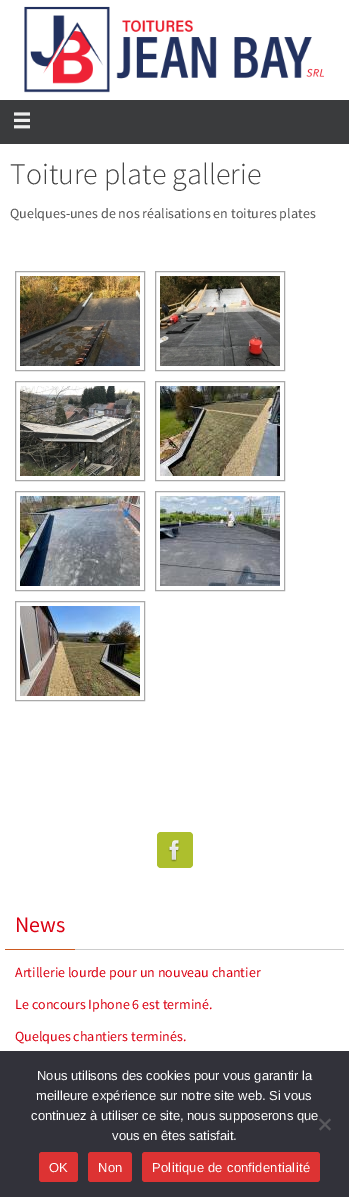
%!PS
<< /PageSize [349 1197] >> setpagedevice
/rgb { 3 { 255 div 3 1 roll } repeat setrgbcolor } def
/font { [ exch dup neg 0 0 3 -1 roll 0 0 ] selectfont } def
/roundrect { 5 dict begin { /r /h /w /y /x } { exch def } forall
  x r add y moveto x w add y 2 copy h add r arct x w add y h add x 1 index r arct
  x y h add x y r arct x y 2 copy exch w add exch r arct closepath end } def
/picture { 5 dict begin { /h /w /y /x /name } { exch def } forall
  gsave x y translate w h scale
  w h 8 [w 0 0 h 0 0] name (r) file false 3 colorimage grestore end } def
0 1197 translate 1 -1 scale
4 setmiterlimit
255 255 255 rgb
0 0 349 1197 rectfill
(img/1.rgb) 24 6 300 87 picture
58 59 61 rgb
0 100 349 44 rectfill
(img/2.rgb) 14 112 16 17 picture
169 169 169 rgb
15.5 271.5 129 99 rectstroke
(img/3.rgb) 20 276 120 90 picture
155.5 271.5 129 99 rectstroke
(img/4.rgb) 160 276 120 90 picture
15.5 381.5 129 99 rectstroke
(img/5.rgb) 20 386 120 90 picture
155.5 381.5 129 99 rectstroke
(img/6.rgb) 160 386 120 90 picture
15.5 491.5 129 99 rectstroke
(img/7.rgb) 20 496 120 90 picture
155.5 491.5 129 99 rectstroke
(img/8.rgb) 160 496 120 90 picture
15.5 601.5 129 99 rectstroke
(img/9.rgb) 20 606 120 90 picture
173 191 45 rgb
157 832 36 36 4 roundrect fill
(img/10.rgb) 168 840 12 22 picture
[
  [75 949 269 1 204 204 204]
  [5 949 70 1 203 89 32]
  [0 1051 349 146 50 50 58]
] { aload pop rgb rectfill } forall
89 89 93 rgb
329.5 1118.5 moveto 331 1120 lineto 320.5 1130.5 lineto 319 1129 lineto closepath fill
319 1120 moveto 320.5 1118.5 lineto 331 1129 lineto 329.5 1130.5 lineto closepath fill
221 51 51 rgb
39 1152 39 30 3 roundrect fill
88 1152 44 30 3 roundrect fill
142 1152 178 30 3 roundrect fill
/SourceSansPro-Light 30 font
68 68 68 rgb
10 184 moveto (Toiture plate gallerie) show
/SourceSansPro-Regular 14 font
85 85 85 rgb
10 218 moveto (Quelques-unes de nos réalisations en toitures plates) show
/SourceSansPro-Regular 22 font
219 1 18 rgb
15 932 moveto (News) show
/SourceSansPro-Regular 14 font
[
  [(Artillerie lourde pour un nouveau chantier) 15 977]
  [(Le concours Iphone 6 est terminé.) 15 1009]
  [(Quelques chantiers terminés.) 15 1041]
] { aload pop moveto show } forall
/LiberationSans-Regular 13 font
255 255 255 rgb
[
  [(Nous utilisons des cookies pour vous garantir la) 37 1080]
  [(meilleure expérience sur notre site web. Si vous) 36 1100]
  [(continuez à utiliser ce site, nous supposerons que) 31 1120]
  [(vous en êtes satisfait.) 112 1140]
] { aload pop moveto show } forall
49 1172 moveto 0.25 0 (OK) ashow
98 1172 moveto 0.25 0 (Non) ashow
152 1172 moveto 0.25 0 (Politique de confidentialité) ashow
showpage
